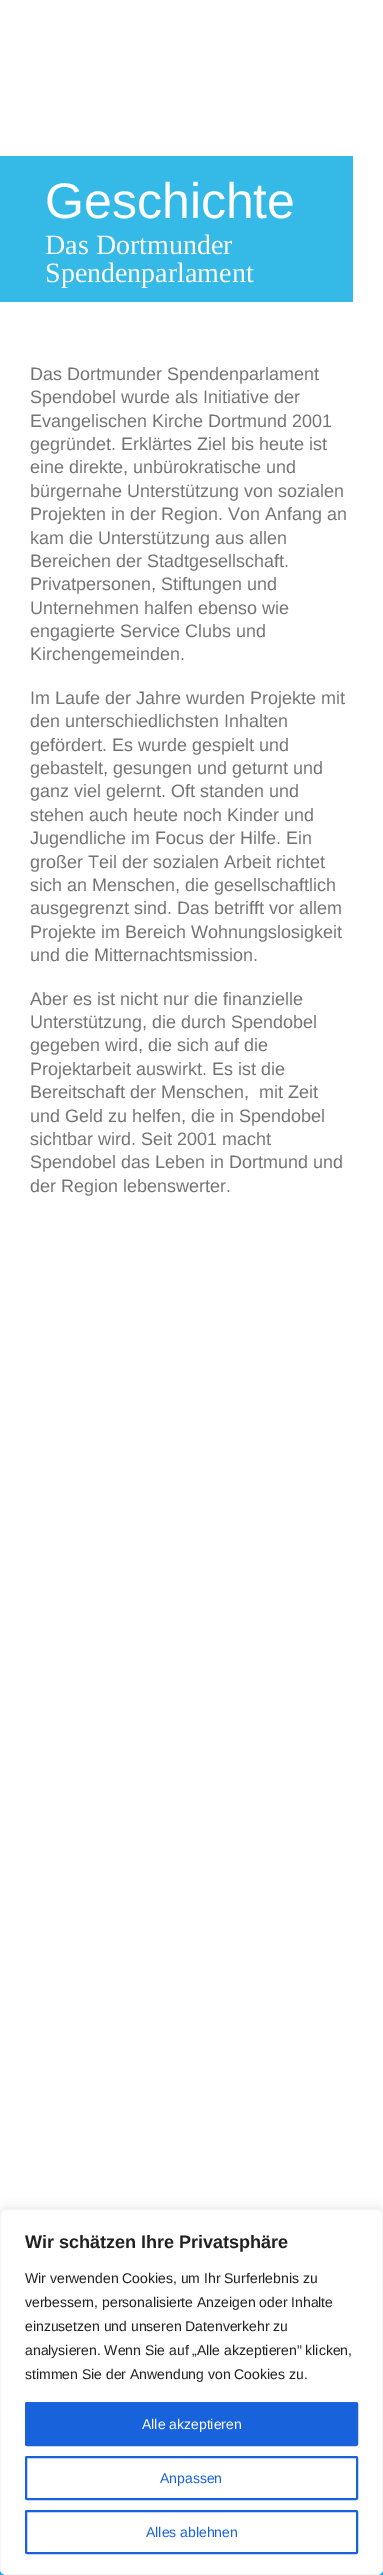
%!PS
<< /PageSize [383 2575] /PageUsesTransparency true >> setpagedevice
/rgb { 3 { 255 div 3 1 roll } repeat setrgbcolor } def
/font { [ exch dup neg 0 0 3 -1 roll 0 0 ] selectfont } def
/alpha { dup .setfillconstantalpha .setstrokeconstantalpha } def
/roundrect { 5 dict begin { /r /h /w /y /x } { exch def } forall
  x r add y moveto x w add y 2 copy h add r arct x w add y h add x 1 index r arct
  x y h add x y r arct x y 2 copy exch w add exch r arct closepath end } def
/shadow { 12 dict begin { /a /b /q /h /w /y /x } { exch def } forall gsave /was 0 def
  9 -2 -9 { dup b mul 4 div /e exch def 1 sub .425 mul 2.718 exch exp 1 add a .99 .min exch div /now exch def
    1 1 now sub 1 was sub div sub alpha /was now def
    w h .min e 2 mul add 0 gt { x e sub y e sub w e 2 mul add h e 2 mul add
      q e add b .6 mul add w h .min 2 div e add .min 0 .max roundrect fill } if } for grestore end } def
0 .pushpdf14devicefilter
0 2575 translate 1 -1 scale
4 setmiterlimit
255 255 255 rgb
0 0 383 2575 rectfill
53 185 231 rgb
0 156 353 146 rectfill
3 169 244 rgb
0 2569 383 6 rectfill
172 171 171 rgb
0 2208 383 366 6 5 0.3 shadow
255 255 255 rgb
0.5 2209.5 382 365 5.5 roundrect gsave fill grestore
244 244 244 rgb
stroke
24 99 220 rgb
26 2403 331 42 1 roundrect gsave fill grestore
2 setlinewidth
stroke
26 2457 331 42 1 roundrect stroke
26 2511 331 42 1 roundrect stroke
/LiberationSans-Regular 50 font
255 255 255 rgb
45 218 moveto (Geschichte) show
/LiberationSerif-Regular 28 font
45 254 moveto (Das Dortmunder) show
45 282 moveto (Spendenparlament) show
/LiberationSans-Regular 18 font
116 116 116 rgb
[
  [(Das Dortmunder Spendenparlament) 30 380]
  [(Spendobel wurde als Initiative der) 30 403]
  [(Evangelischen Kirche Dortmund 2001) 30 427]
  [(gegründet. Erklärtes Ziel bis heute ist) 30 450]
  [(eine direkte, unbürokratische und) 30 473]
  [(bürgernahe Unterstützung von sozialen) 30 497]
  [(Projekten in der Region. Von Anfang an) 30 520]
  [(kam die Unterstützung aus allen) 30 544]
  [(Bereichen der Stadtgesellschaft.) 30 567]
  [(Privatpersonen, Stiftungen und) 30 590]
  [(Unternehmen halfen ebenso wie) 30 614]
  [(engagierte Service Clubs und) 30 637]
  [(Kirchengemeinden.) 30 660]
  [(Im Laufe der Jahre wurden Projekte mit) 30 704]
  [(den unterschiedlichsten Inhalten) 30 727]
  [(gefördert. Es wurde gespielt und) 30 751]
  [(gebastelt, gesungen und geturnt und) 30 774]
  [(ganz viel gelernt. Oft standen und) 30 797]
  [(stehen auch heute noch Kinder und) 30 821]
  [(Jugendliche im Focus der Hilfe. Ein) 30 844]
  [(großer Teil der sozialen Arbeit richtet) 30 868]
  [(sich an Menschen, die gesellschaftlich) 30 891]
  [(ausgegrenzt sind. Das betrifft vor allem) 30 914]
  [(Projekte im Bereich Wohnungslosigkeit) 30 938]
  [(und die Mitternachtsmission.) 30 961]
  [(Aber es ist nicht nur die finanzielle) 30 1005]
  [(Unterstützung, die durch Spendobel) 30 1028]
  [(gegeben wird, die sich auf die) 30 1051]
  [(Projektarbeit auswirkt. Es ist die) 30 1075]
  [(Bereitschaft der Menschen,  mit Zeit) 30 1098]
  [(und Geld zu helfen, die in Spendobel) 30 1122]
  [(sichtbar wird. Seit 2001 macht) 30 1145]
  [(Spendobel das Leben in Dortmund und) 30 1168]
  [(der Region lebenswerter.) 30 1192]
] { aload pop moveto show } forall
/LiberationSans-Bold 18 font
33 33 33 rgb
25 2248 moveto (Wir schätzen Ihre Privatsphäre) show
/LiberationSans-Regular 14 font
[
  [(Wir verwenden Cookies, um Ihr Surferlebnis zu) 25 2283]
  [(verbessern, personalisierte Anzeigen oder Inhalte) 25 2307]
  [(einzusetzen und unseren Datenverkehr zu) 25 2331]
  [(analysieren. Wenn Sie auf „Alle akzeptieren" klicken,) 25 2355]
  [(stimmen Sie der Anwendung von Cookies zu.) 25 2379]
] { aload pop moveto show } forall
255 255 255 rgb
142 2429 moveto (Alle akzeptieren) show
24 99 220 rgb
160 2483 moveto (Anpassen) show
146 2537 moveto (Alles ablehnen) show
.poppdf14devicefilter showpage
